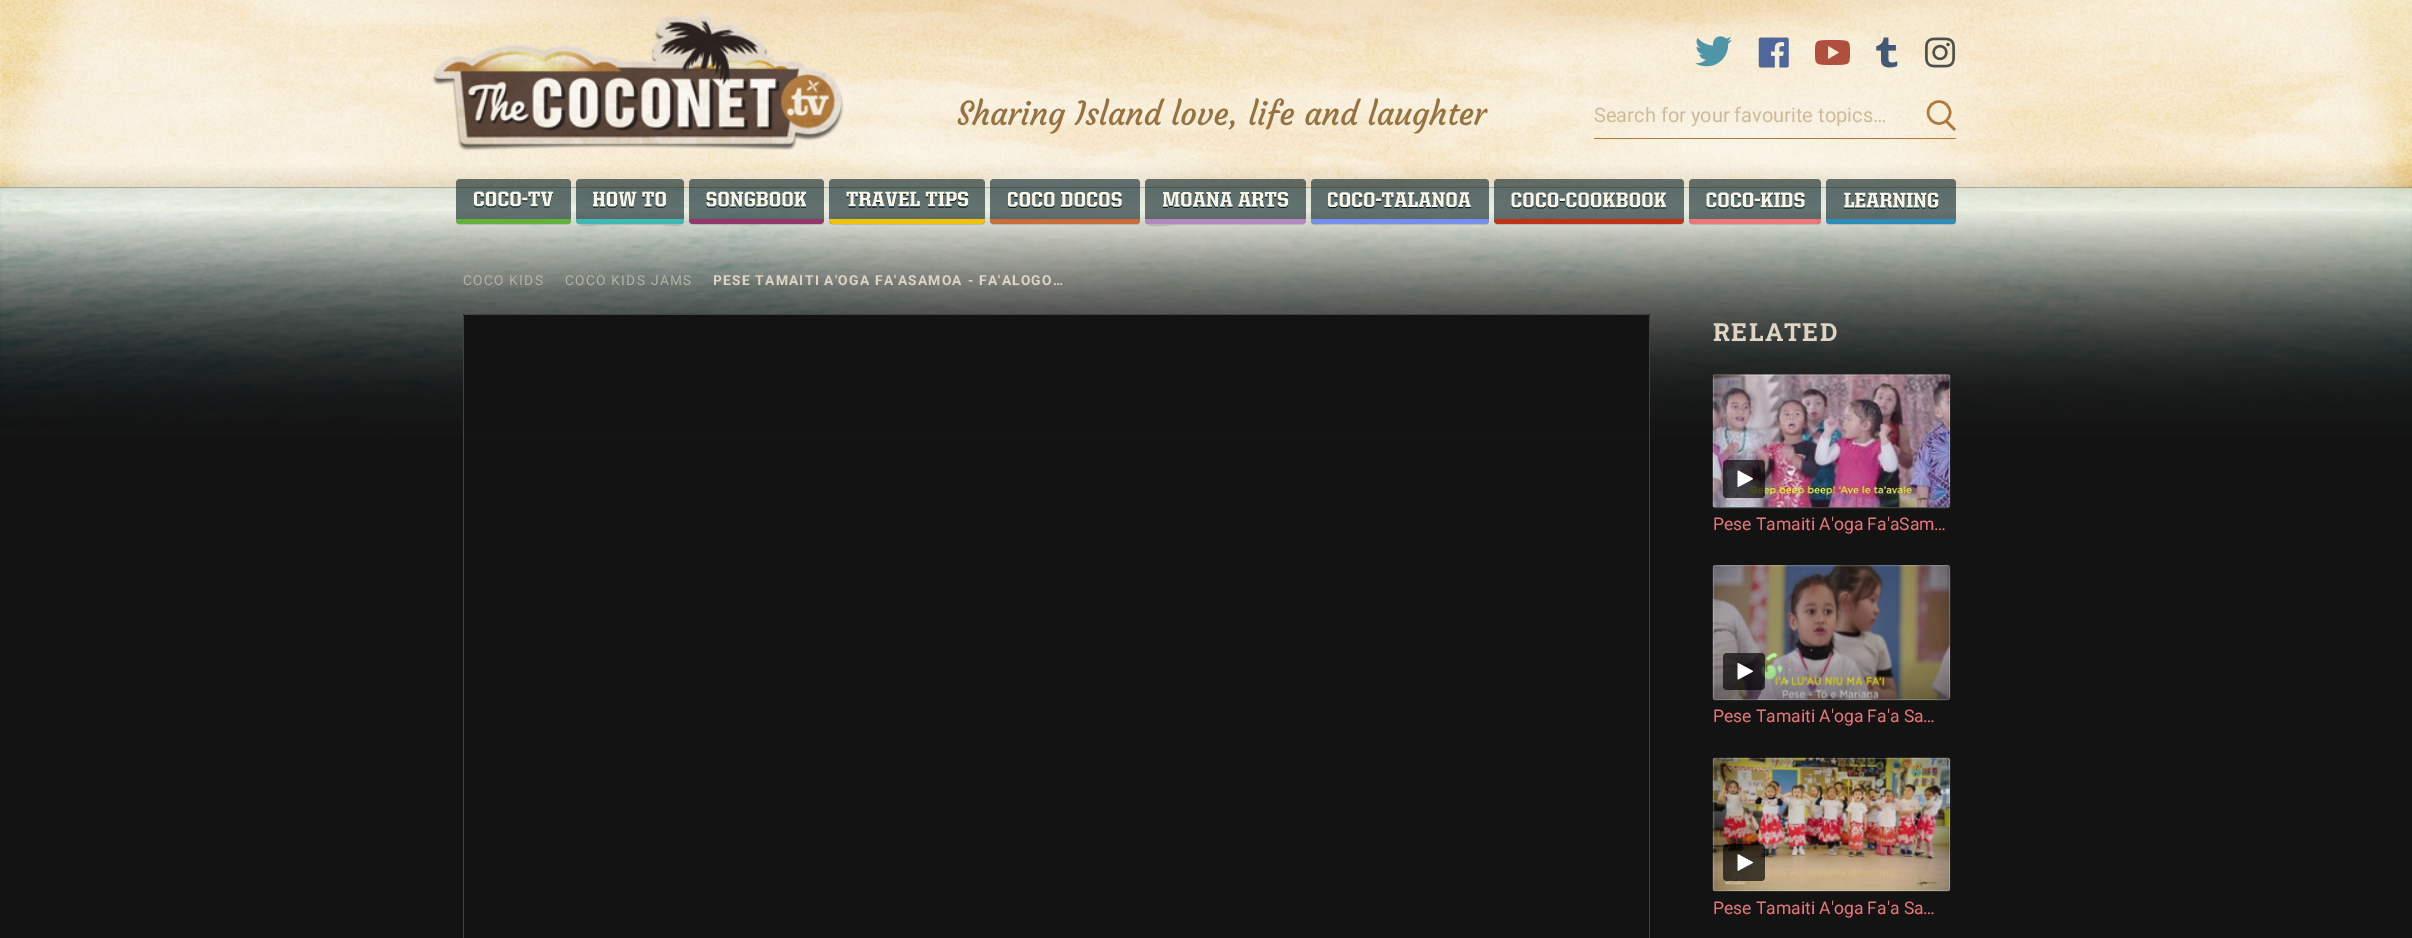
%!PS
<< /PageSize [2412 938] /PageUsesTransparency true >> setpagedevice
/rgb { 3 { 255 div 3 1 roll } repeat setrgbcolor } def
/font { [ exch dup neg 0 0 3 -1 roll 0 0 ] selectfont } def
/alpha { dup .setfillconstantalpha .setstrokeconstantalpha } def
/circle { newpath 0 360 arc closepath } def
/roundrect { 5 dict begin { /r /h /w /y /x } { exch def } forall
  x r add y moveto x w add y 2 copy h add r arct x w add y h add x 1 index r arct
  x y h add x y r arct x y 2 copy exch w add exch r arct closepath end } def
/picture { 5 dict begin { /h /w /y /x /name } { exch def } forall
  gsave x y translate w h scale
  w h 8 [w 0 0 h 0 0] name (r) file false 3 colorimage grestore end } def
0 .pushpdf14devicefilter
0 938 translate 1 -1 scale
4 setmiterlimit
19 19 19 rgb
0 0 2412 938 rectfill
(img/1.rgb) 0 0 2412 188 picture
(img/2.rgb) 0 187 2412 259 picture
(img/3.rgb) 0 211 2412 239 picture
(img/4.rgb) 432 13 412 138 picture
(img/5.rgb) 1695 36 37 31 picture
(img/6.rgb) 1758 37 31 31 picture
(img/7.rgb) 1815 40 35 25 picture
(img/8.rgb) 1876 37 22 31 picture
(img/9.rgb) 1925 37 30 31 picture
(img/10.rgb) 957 98 531 36 picture
176 121 60 rgb
1594 138 362 1 rectfill
2.5 setlinewidth
1939 112.5 11 circle stroke
2 setlinecap
1947 122 moveto 1954 129 lineto stroke
0.6 alpha
7 31 36 rgb
456 179 115 45 4 roundrect fill
1 alpha
(img/11.rgb) 474 191 80 17 picture
0.15 alpha
11 34 39 rgb
456 220 moveto 456 221 lineto 456 223 458 225 460 225 curveto 567 225 lineto 569 225 571 223 571 221 curveto 570 223 569 224 568 224 curveto 460 224 lineto 458 224 456 222 456 220 curveto closepath fill
1 alpha
98 177 58 rgb
456 219 moveto 571 219 lineto 571 220 lineto 571 222 569 224 567 224 curveto 460 224 lineto 458 224 456 222 456 220 curveto closepath fill
0.6 alpha
7 31 36 rgb
576 179 108 45 4 roundrect fill
1 alpha
(img/12.rgb) 593 191 73 17 picture
0.15 alpha
11 34 39 rgb
576 220 moveto 576 229 593 225 597 225 curveto 663 225 lineto 667 225 684 229 684 220 curveto 684 222 682 224 680 224 curveto 580 224 lineto 578 224 576 222 576 220 curveto closepath fill
1 alpha
62 185 181 rgb
576 219 moveto 684 219 lineto 684 220 lineto 684 222 682 224 680 224 curveto 580 224 lineto 578 224 576 222 576 220 curveto closepath fill
0.6 alpha
7 31 36 rgb
689 179 135 45 4 roundrect fill
1 alpha
(img/13.rgb) 706 191 100 17 picture
0.15 alpha
11 34 39 rgb
689 221 moveto 689 223 691 225 693 225 curveto 820 225 lineto 822 225 824 223 824 221 curveto 824 220 lineto 824 222 822 224 820 224 curveto 692 224 lineto 691 224 690 223 689 221 curveto closepath fill
1 alpha
145 55 108 rgb
689 219 moveto 824 219 lineto 824 220 lineto 824 222 822 224 820 224 curveto 693 224 lineto 691 224 689 222 689 220 curveto closepath fill
0.6 alpha
7 31 36 rgb
829 179 156 45 4 roundrect fill
1 alpha
(img/14.rgb) 846 191 123 17 picture
0.15 alpha
11 34 39 rgb
829 221 moveto 829 223 831 225 833 225 curveto 981 225 lineto 983 225 985 223 985 221 curveto 985 220 lineto 985 222 983 224 981 224 curveto 832 224 lineto 831 224 830 223 829 221 curveto closepath fill
1 alpha
238 194 10 rgb
829 219 moveto 985 219 lineto 985 220 lineto 985 222 983 224 981 224 curveto 833 224 lineto 831 224 829 222 829 220 curveto closepath fill
0.6 alpha
7 31 36 rgb
990 179 150 45 4 roundrect fill
1 alpha
(img/15.rgb) 1008 192 114 16 picture
0.15 alpha
11 34 39 rgb
990 220 moveto 990 222 991 224 993 225 curveto 1136 225 lineto 1139 225 1140 223 1140 220 curveto 1140 222 1138 224 1136 224 curveto 994 224 lineto 992 224 990 222 990 220 curveto closepath fill
1 alpha
200 110 59 rgb
990 219 moveto 1140 219 lineto 1140 220 lineto 1140 222 1138 224 1136 224 curveto 994 224 lineto 992 224 990 222 990 220 curveto closepath fill
0.6 alpha
7 31 36 rgb
1145 179 161 45 4 roundrect fill
1 alpha
(img/16.rgb) 1163 192 126 16 picture
0.15 alpha
11 34 39 rgb
1145 220 moveto 1145 230 1164 225 1174 225 curveto 1303 225 lineto 1305 223 lineto 1306 221 lineto 1305 223 1304 224 1302 224 curveto 1149 224 lineto 1147 224 1145 222 1145 220 curveto closepath fill
1 alpha
179 136 193 rgb
1145 219 moveto 1306 219 lineto 1306 220 lineto 1306 222 1304 224 1302 224 curveto 1149 224 lineto 1147 224 1145 222 1145 220 curveto closepath fill
0.6 alpha
7 31 36 rgb
1311 179 178 45 4 roundrect fill
1 alpha
(img/17.rgb) 1328 192 143 17 picture
0.15 alpha
11 34 39 rgb
1311 220 moveto 1311 221 lineto 1311 223 1313 225 1315 225 curveto 1485 225 lineto 1487 225 1489 223 1489 221 curveto 1489 220 lineto 1489 222 1487 224 1485 224 curveto 1315 224 lineto 1313 224 1311 222 1311 220 curveto closepath fill
1 alpha
118 143 236 rgb
1311 219 moveto 1489 219 lineto 1489 220 lineto 1489 222 1487 224 1485 224 curveto 1315 224 lineto 1313 224 1311 222 1311 220 curveto closepath fill
0.6 alpha
7 31 36 rgb
1494 179 190 45 4 roundrect fill
1 alpha
(img/18.rgb) 1511 192 155 17 picture
0.15 alpha
11 34 39 rgb
1494 221 moveto 1494 223 1496 225 1498 225 curveto 1680 225 lineto 1682 225 1684 223 1684 221 curveto 1684 220 lineto 1684 222 1682 224 1680 224 curveto 1498 224 lineto 1496 224 1495 223 1494 221 curveto closepath fill
1 alpha
189 51 22 rgb
1494 219 moveto 1684 219 lineto 1684 220 lineto 1684 222 1682 224 1680 224 curveto 1498 224 lineto 1496 224 1494 222 1494 220 curveto closepath fill
0.6 alpha
7 31 36 rgb
1689 179 132 45 4 roundrect fill
1 alpha
(img/19.rgb) 1706 192 99 17 picture
0.15 alpha
11 34 39 rgb
1689 221 moveto 1689 223 1691 225 1693 225 curveto 1817 225 lineto 1819 225 1821 223 1821 221 curveto 1820 223 1819 224 1818 224 curveto 1692 224 lineto 1691 224 1690 223 1689 221 curveto closepath fill
1 alpha
236 118 122 rgb
1689 219 moveto 1821 219 lineto 1821 220 lineto 1821 222 1819 224 1817 224 curveto 1693 224 lineto 1691 224 1689 222 1689 220 curveto closepath fill
0.6 alpha
7 31 36 rgb
1826 179 130 45 4 roundrect fill
1 alpha
(img/20.rgb) 1844 192 95 17 picture
0.15 alpha
11 34 39 rgb
1826 220 moveto 1826 221 lineto 1826 223 1828 225 1830 225 curveto 1952 225 lineto 1954 225 1956 223 1956 221 curveto 1955 223 1954 224 1952 224 curveto 1830 224 lineto 1828 224 1826 222 1826 220 curveto closepath fill
1 alpha
46 141 183 rgb
1826 219 moveto 1956 219 lineto 1956 220 lineto 1956 222 1954 224 1952 224 curveto 1830 224 lineto 1828 224 1826 222 1826 220 curveto closepath fill
[
  [463 314 1187 121 19 19 19]
  [466 314 1183 1 66 66 66]
] { aload pop rgb rectfill } forall
0.2 alpha
[
  [464 314 3 1 255 255 255]
] { aload pop rgb rectfill } forall
1 alpha
[
  [463 315 1 623 66 66 66]
  [1649 315 1 623 66 66 66]
] { aload pop rgb rectfill } forall
0.5 alpha
0 0 0 rgb
1713 374 237 134 2.5 roundrect fill
1 alpha
(img/21.rgb) 1712 374 238 134 picture
0.67 alpha
1723 460 42 38 4 roundrect fill
1 alpha
(img/22.rgb) 1737 470 17 17 picture
0.2 alpha
255 255 255 rgb
1 setlinewidth
0 setlinecap
1713.5 374.5 236 133 2 roundrect stroke
1 alpha
(img/23.rgb) 1712 565 238 135 picture
0.67 alpha
0 0 0 rgb
1723 653 42 37 4 roundrect fill
1 alpha
(img/24.rgb) 1737 663 17 17 picture
0.2 alpha
255 255 255 rgb
1713.5 565.5 236 134 2 roundrect stroke
1 alpha
(img/25.rgb) 1712 757 238 135 picture
0.67 alpha
0 0 0 rgb
1723 844 42 37 4 roundrect fill
1 alpha
(img/26.rgb) 1737 854 17 17 picture
0.2 alpha
255 255 255 rgb
1713.5 758.5 236 132 2 roundrect stroke
/Roboto-Regular 20 font
1 alpha
206 186 154 rgb
1594 122 moveto (Search for your favourite topics…) show
/Roboto-Regular 13.75 font
183 179 166 rgb
463 285 moveto 1.25 0 (COCO KIDS) ashow
565 285 moveto 1.25 0 (COCO KIDS JAMS) ashow
/Roboto-Bold 13.75 font
224 213 196 rgb
713 285 moveto 1.25 0 (PESE TAMAITI A'OGA FA'ASAMOA - FA'ALOGO…) ashow
/RobotoSlab-Bold 25 font
1713 341 moveto 1.25 0 (RELATED) ashow
/Roboto-Regular 17.5 font
236 118 122 rgb
[
  [(Pese Tamaiti A'oga Fa'aSam…) 1713 530]
  [(Pese Tamaiti A'oga Fa'a Sa…) 1713 722]
  [(Pese Tamaiti A'oga Fa'a Sa…) 1713 914]
] { aload pop moveto show } forall
.poppdf14devicefilter showpage
